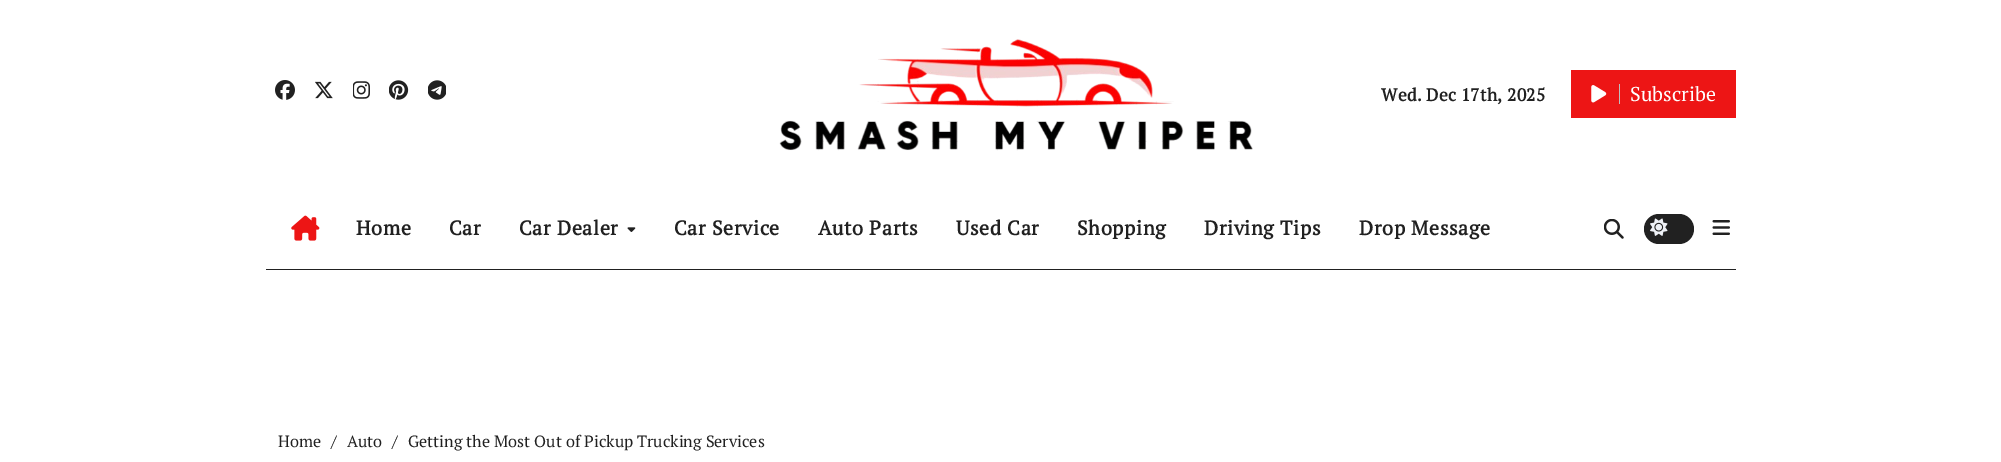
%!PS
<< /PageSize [2001 462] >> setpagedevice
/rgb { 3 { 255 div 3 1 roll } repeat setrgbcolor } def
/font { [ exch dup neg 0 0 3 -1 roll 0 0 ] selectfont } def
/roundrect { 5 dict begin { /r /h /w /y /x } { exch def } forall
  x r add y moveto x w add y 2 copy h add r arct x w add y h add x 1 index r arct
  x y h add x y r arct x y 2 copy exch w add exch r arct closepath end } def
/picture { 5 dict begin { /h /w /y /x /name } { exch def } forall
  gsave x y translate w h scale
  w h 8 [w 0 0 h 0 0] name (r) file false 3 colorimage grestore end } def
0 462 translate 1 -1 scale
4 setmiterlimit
255 255 255 rgb
0 0 2001 462 rectfill
(img/1.rgb) 275 80 20 20 picture
(img/2.rgb) 315 81 18 18 picture
(img/3.rgb) 353 81 17 18 picture
(img/4.rgb) 389 80 20 20 picture
(img/5.rgb) 428 80 18 20 picture
(img/6.rgb) 779 39 474 112 picture
237 21 21 rgb
1571 70 165 48 rectfill
(img/7.rgb) 1591 85 16 18 picture
189 189 189 rgb
1619 84 1 20 rectfill
33 33 33 rgb
266 269 1470 1 rectfill
(img/8.rgb) 291 215 29 26 picture
(img/9.rgb) 627 227 9 5 picture
(img/10.rgb) 1604 219 20 20 picture
1644 214 50 30 15 roundrect fill
(img/11.rgb) 1650 218 18 18 picture
(img/12.rgb) 1712 220 18 15 picture
/PTSerif-Bold 17.5 font
1381 101 moveto 0.25 0 (Wed. Dec 17th, 2025) ashow
/PTSerif-Regular 20 font
255 255 255 rgb
1630 101 moveto (Subscribe) show
/PTSerif-Bold 20 font
33 33 33 rgb
356 235 moveto 0.6 0 (Home) ashow
449 235 moveto 0.6 0 (Car) ashow
519 235 moveto 0.6 0 (Car Dealer) ashow
674 235 moveto 0.6 0 (Car Service) ashow
818 235 moveto 0.6 0 (Auto Parts) ashow
956 235 moveto 0.6 0 (Used Car) ashow
1077 235 moveto 0.6 0 (Shopping) ashow
1204 235 moveto 0.6 0 (Driving Tips) ashow
1359 235 moveto 0.6 0 (Drop Message) ashow
/PTSerif-Regular 16.25 font
278 447 moveto (Home) show
0 0 0 rgb
331 447 moveto (/) show
33 33 33 rgb
347 447 moveto (Auto) show
0 0 0 rgb
392 447 moveto (/) show
33 33 33 rgb
408 447 moveto (Getting the Most Out of Pickup Trucking Services) show
showpage
